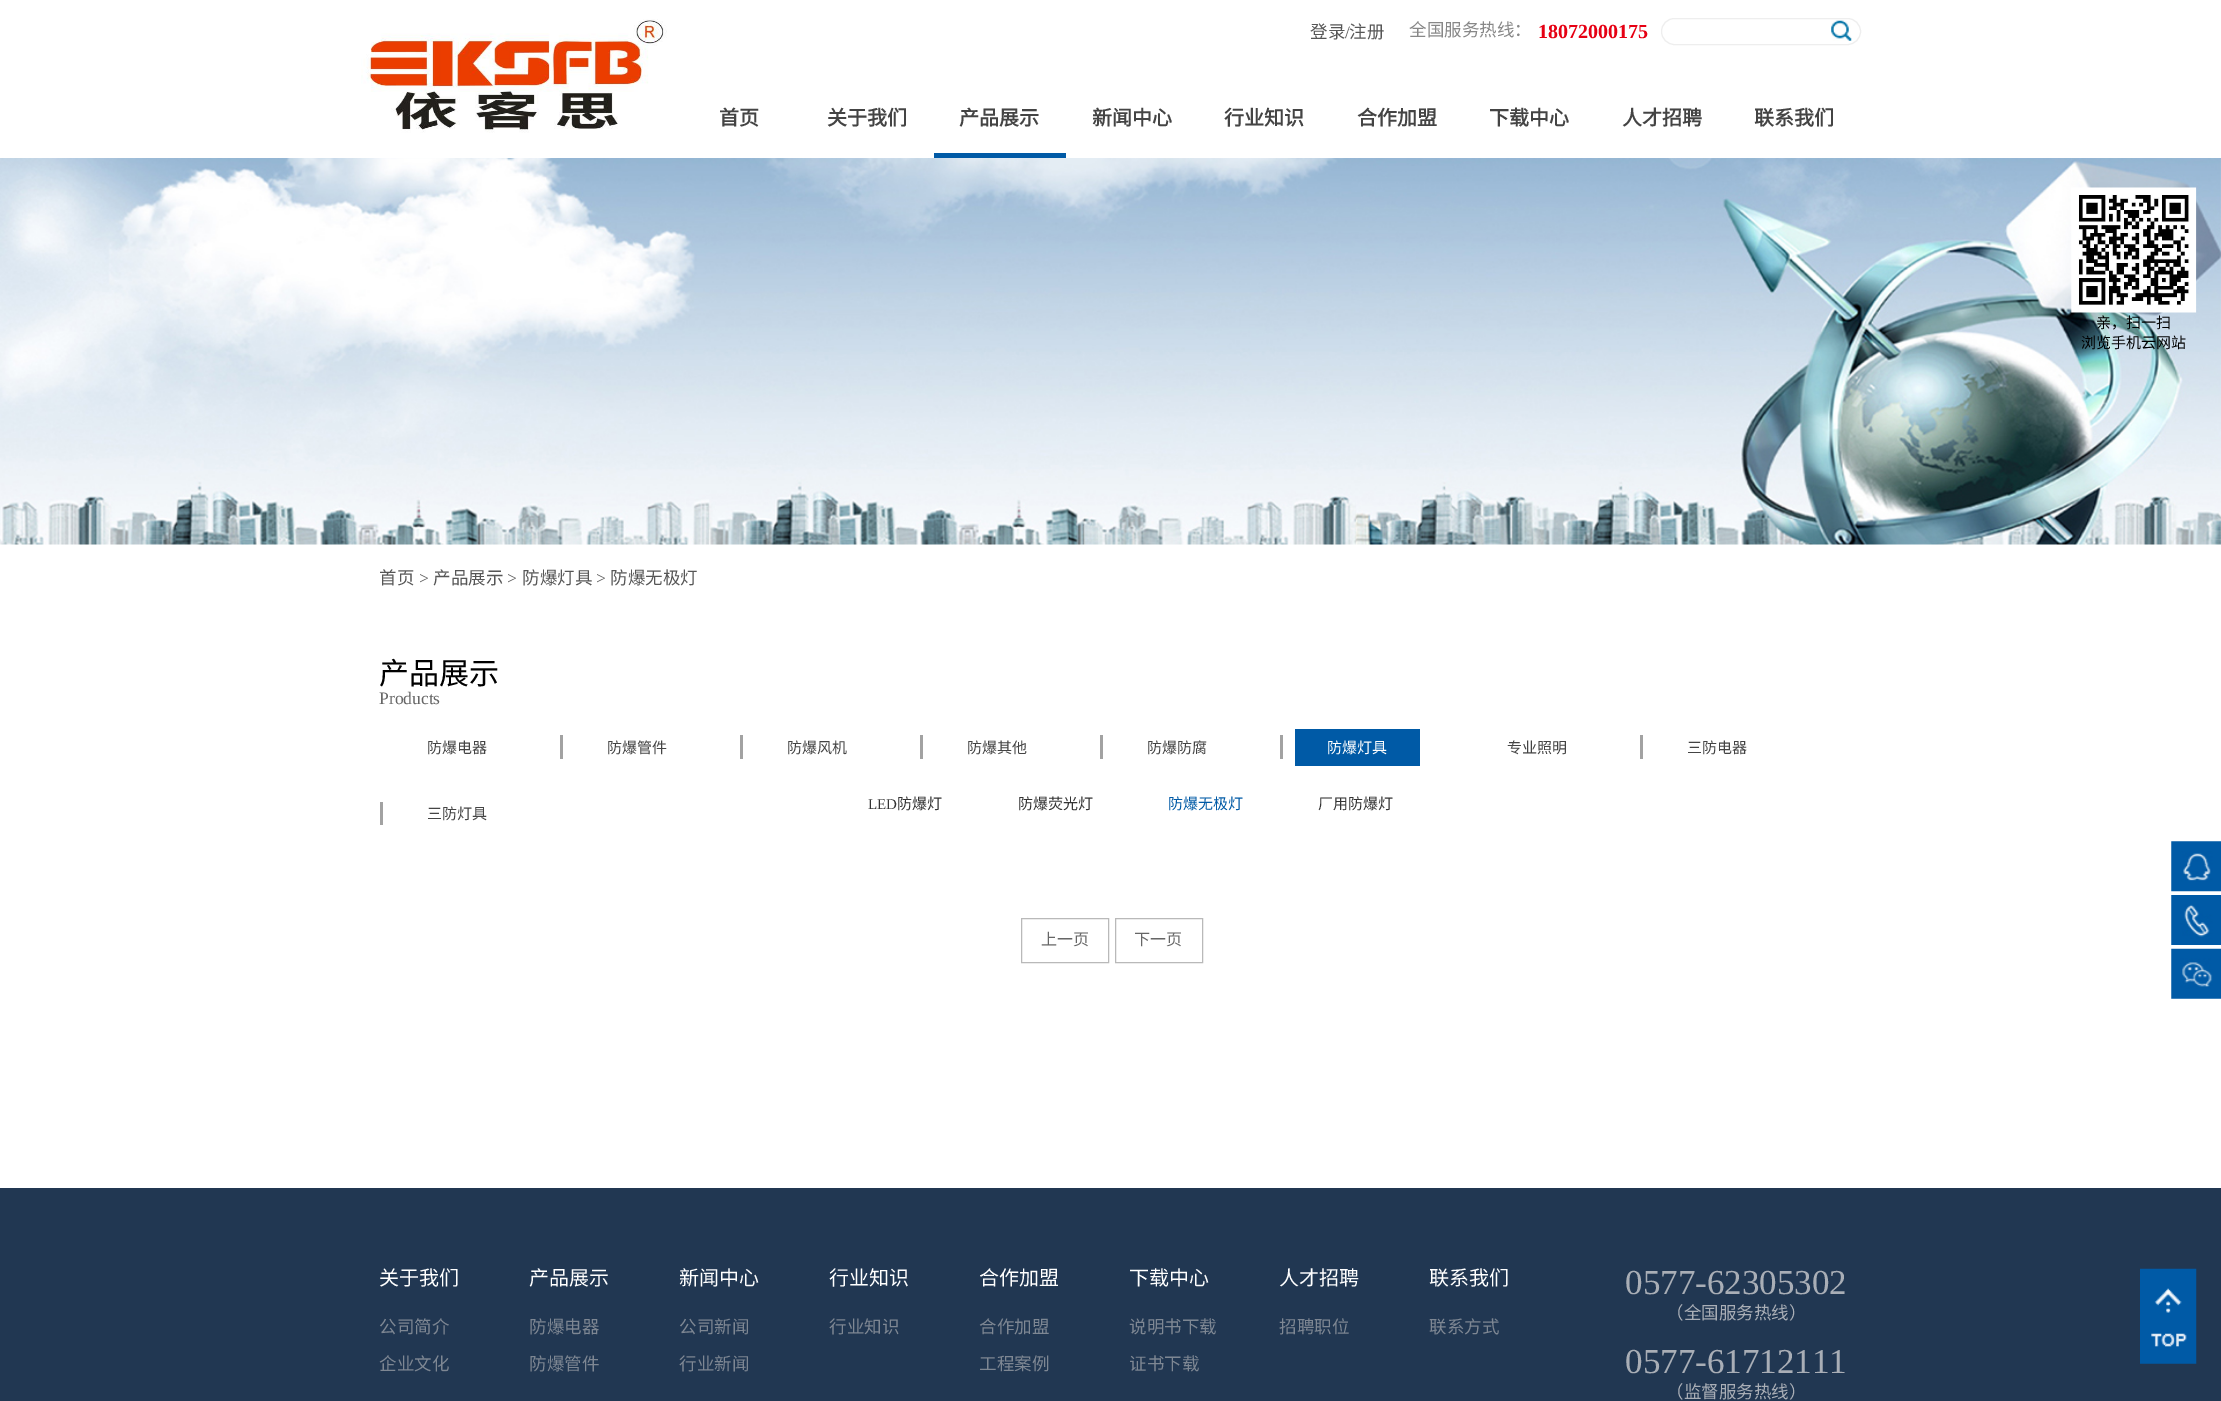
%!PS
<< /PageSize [2221 1401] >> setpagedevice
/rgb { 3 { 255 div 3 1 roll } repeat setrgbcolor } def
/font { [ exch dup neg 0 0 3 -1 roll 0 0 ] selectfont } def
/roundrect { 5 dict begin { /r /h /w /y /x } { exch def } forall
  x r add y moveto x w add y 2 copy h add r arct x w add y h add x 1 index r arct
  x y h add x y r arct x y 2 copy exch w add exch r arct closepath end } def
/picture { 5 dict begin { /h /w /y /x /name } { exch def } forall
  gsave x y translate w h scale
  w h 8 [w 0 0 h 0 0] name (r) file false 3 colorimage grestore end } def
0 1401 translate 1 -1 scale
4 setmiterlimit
255 255 255 rgb
0 0 2221 1401 rectfill
(img/1.rgb) 361 19 306 114 picture
238 238 238 rgb
1661.5 18.5 199 26 13 roundrect stroke
(img/2.rgb) 1831 20 21 21 picture
0 90 166 rgb
934 153 132 5 rectfill
(img/3.rgb) 0 158 2221 387 picture
(img/4.rgb) 2071 187 126 126 picture
[
  [560 735 3 24 162 162 162]
  [740 735 3 24 162 162 162]
  [1280 735 3 24 162 162 162]
  [1295 729 125 37 0 90 166]
  [920 735 3 24 162 162 162]
  [1100 735 3 24 162 162 162]
  [1640 735 3 24 162 162 162]
  [380 802 3 23 162 162 162]
] { aload pop rgb rectfill } forall
185 185 185 rgb
1021.5 918.5 87 44 rectstroke
1115.5 918.5 87 44 rectstroke
(img/5.rgb) 2171 841 50 51 picture
(img/6.rgb) 2171 895 50 50 picture
(img/7.rgb) 2171 948 50 51 picture
33 55 82 rgb
0 1188 2221 213 rectfill
(img/8.rgb) 2140 1268 57 96 picture
/NotoSansCJKSC-Regular 17.5 font
86 86 86 rgb
1310 38 moveto (登录) show
/LiberationSerif-Regular 17.5 font
1345 38 moveto (/) show
/NotoSansCJKSC-Regular 17.5 font
1349 38 moveto (注册) show
136 136 136 rgb
1409 36 moveto (全国服务热线：) show
/LiberationSerif-Bold 20 font
230 0 19 rgb
1538 38 moveto (18072000175) show
/NotoSansCJKSC-Bold 20 font
68 68 68 rgb
[
  [(首页) 719 125]
  [(关于我们) 827 125]
  [(产品展示) 959 125]
  [(新闻中心) 1092 125]
  [(行业知识) 1224 125]
  [(合作加盟) 1357 125]
  [(下载中心) 1489 125]
  [(人才招聘) 1622 125]
  [(联系我们) 1754 125]
] { aload pop moveto show } forall
/NotoSansCJKSC-Regular 15 font
0 0 0 rgb
2096 328 moveto (亲，扫一扫) show
2081 348 moveto (浏览手机云网站) show
/NotoSansCJKSC-Regular 17.5 font
86 86 86 rgb
379 584 moveto (首页) show
/LiberationSerif-Regular 17.5 font
419 584 moveto (>) show
/NotoSansCJKSC-Regular 17.5 font
433 584 moveto (产品展示) show
/LiberationSerif-Regular 17.5 font
507 584 moveto (>) show
/NotoSansCJKSC-Regular 17.5 font
522 584 moveto (防爆灯具) show
/LiberationSerif-Regular 17.5 font
596 584 moveto (>) show
/NotoSansCJKSC-Regular 17.5 font
610 584 moveto (防爆无极灯) show
/NotoSansCJKSC-Regular 30 font
0 0 0 rgb
379 684 moveto (产品展示) show
/LiberationSerif-Regular 17.5 font
102 102 102 rgb
379 704 moveto (Products) show
/NotoSansCJKSC-Regular 15 font
68 68 68 rgb
[
  [(防爆电器) 427 753]
  [(防爆管件) 607 753]
  [(防爆风机) 787 753]
] { aload pop moveto show } forall
255 255 255 rgb
1327 753 moveto (防爆灯具) show
/LiberationSerif-Regular 15 font
51 51 51 rgb
868 809 moveto (LED) show
/NotoSansCJKSC-Regular 15 font
897 809 moveto (防爆灯) show
1018 809 moveto (防爆荧光灯) show
0 90 166 rgb
1168 809 moveto (防爆无极灯) show
51 51 51 rgb
1318 809 moveto (厂用防爆灯) show
68 68 68 rgb
[
  [(防爆其他) 967 753]
  [(防爆防腐) 1147 753]
  [(专业照明) 1507 753]
  [(三防电器) 1687 753]
  [(三防灯具) 427 819]
] { aload pop moveto show } forall
/NotoSansCJKSC-Regular 16 font
102 102 102 rgb
1041 945 moveto (上一页) show
1134 945 moveto (下一页) show
/NotoSansCJKSC-Regular 20 font
255 255 255 rgb
379 1285 moveto (关于我们) show
/NotoSansCJKSC-Regular 17.5 font
126 135 147 rgb
379 1333 moveto (公司简介) show
379 1370 moveto (企业文化) show
/NotoSansCJKSC-Regular 20 font
255 255 255 rgb
529 1285 moveto (产品展示) show
/NotoSansCJKSC-Regular 17.5 font
126 135 147 rgb
529 1333 moveto (防爆电器) show
529 1370 moveto (防爆管件) show
/NotoSansCJKSC-Regular 20 font
255 255 255 rgb
679 1285 moveto (新闻中心) show
/NotoSansCJKSC-Regular 17.5 font
126 135 147 rgb
679 1333 moveto (公司新闻) show
679 1370 moveto (行业新闻) show
/NotoSansCJKSC-Regular 20 font
255 255 255 rgb
829 1285 moveto (行业知识) show
/NotoSansCJKSC-Regular 17.5 font
126 135 147 rgb
829 1333 moveto (行业知识) show
/NotoSansCJKSC-Regular 20 font
255 255 255 rgb
979 1285 moveto (合作加盟) show
/NotoSansCJKSC-Regular 17.5 font
126 135 147 rgb
979 1333 moveto (合作加盟) show
979 1370 moveto (工程案例) show
/NotoSansCJKSC-Regular 20 font
255 255 255 rgb
1129 1285 moveto (下载中心) show
/NotoSansCJKSC-Regular 17.5 font
126 135 147 rgb
1129 1333 moveto (说明书下载) show
1129 1370 moveto (证书下载) show
/NotoSansCJKSC-Regular 20 font
255 255 255 rgb
1279 1285 moveto (人才招聘) show
/NotoSansCJKSC-Regular 17.5 font
126 135 147 rgb
1279 1333 moveto (招聘职位) show
/NotoSansCJKSC-Regular 20 font
255 255 255 rgb
1429 1285 moveto (联系我们) show
/NotoSansCJKSC-Regular 17.5 font
126 135 147 rgb
1429 1333 moveto (联系方式) show
/LiberationSerif-Regular 35 font
169 174 182 rgb
1625 1294 moveto (0577-62305302) show
/NotoSansCJKSC-Regular 17.5 font
1666 1319 moveto (（全国服务热线）) show
/LiberationSerif-Regular 35 font
1625 1373 moveto (0577-61712111) show
/NotoSansCJKSC-Regular 17.5 font
1666 1398 moveto (（监督服务热线）) show
showpage
